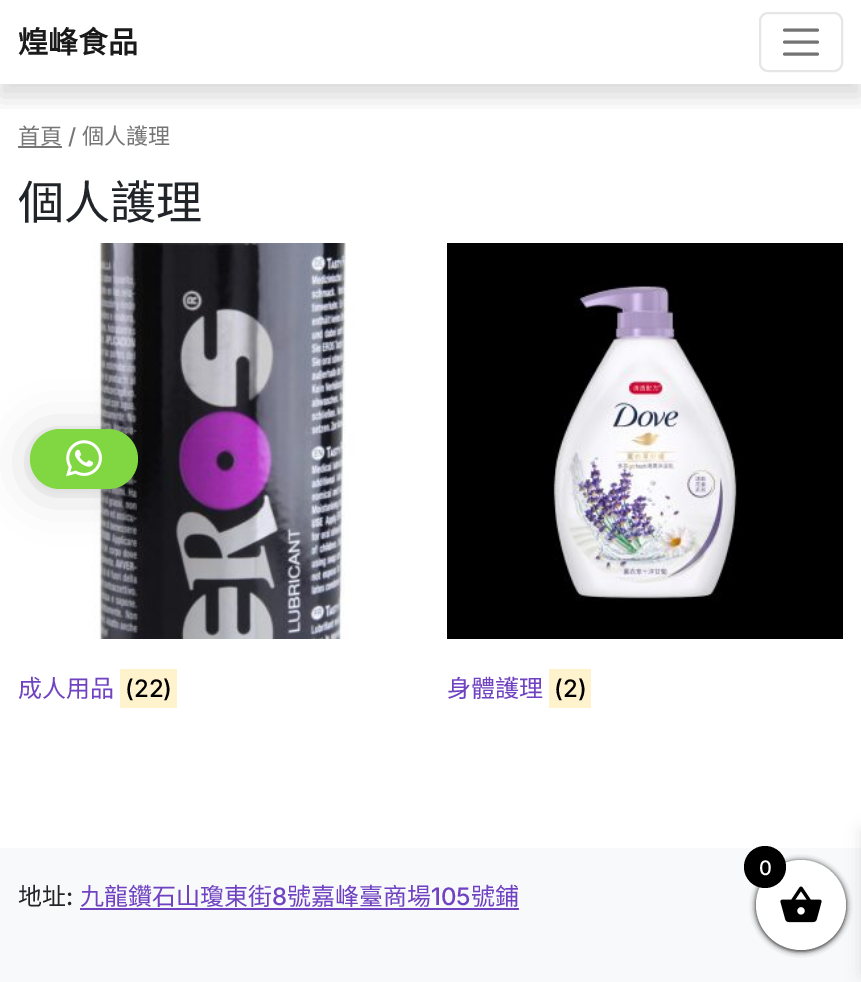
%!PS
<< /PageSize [861 982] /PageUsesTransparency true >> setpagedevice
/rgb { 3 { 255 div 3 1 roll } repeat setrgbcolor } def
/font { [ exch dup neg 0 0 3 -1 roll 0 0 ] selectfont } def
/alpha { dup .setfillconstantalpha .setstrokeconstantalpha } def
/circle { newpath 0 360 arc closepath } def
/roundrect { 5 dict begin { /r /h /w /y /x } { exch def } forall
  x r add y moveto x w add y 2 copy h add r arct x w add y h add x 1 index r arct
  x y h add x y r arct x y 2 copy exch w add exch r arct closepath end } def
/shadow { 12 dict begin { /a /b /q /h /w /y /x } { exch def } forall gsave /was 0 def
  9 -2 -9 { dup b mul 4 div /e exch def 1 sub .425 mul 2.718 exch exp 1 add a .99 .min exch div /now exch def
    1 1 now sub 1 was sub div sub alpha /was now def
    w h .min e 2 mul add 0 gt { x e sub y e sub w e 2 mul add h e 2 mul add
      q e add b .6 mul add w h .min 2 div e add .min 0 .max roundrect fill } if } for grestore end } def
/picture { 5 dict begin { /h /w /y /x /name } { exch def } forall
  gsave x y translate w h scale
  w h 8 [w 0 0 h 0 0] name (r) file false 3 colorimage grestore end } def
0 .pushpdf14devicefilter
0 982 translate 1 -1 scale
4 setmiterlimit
255 255 255 rgb
0 0 861 982 rectfill
gsave
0 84 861 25 rectclip
0 0 0 rgb
0 12 861 84 0 12 0.15 shadow
grestore
230 230 230 rgb
2 setlinewidth
760 13 82 58 8 roundrect stroke
115 115 115 rgb
3 setlinewidth
1 setlinecap
784.5 30 moveto 817.5 30 lineto 784.5 42 moveto 817.5 42 lineto 784.5 54 moveto 817.5 54 lineto stroke
118 118 118 rgb
18 146 44 2 rectfill
(img/1.rgb) 92 243 263 396 picture
255 243 205 rgb
120 669 57 39 rectfill
(img/2.rgb) 447 243 396 396 picture
[
  [549 669 42 39 255 243 205]
  [0 848 861 134 248 249 250]
  [80 908 439 2 111 66 193]
] { aload pop rgb rectfill } forall
0 0 0 rgb
30 432 108 60 30 24 0.16 shadow
30 431 108 60 30 4.5 0.06 shadow
129 215 66 rgb
30 429 108 60 30 roundrect fill
(img/3.rgb) 66 440 36 37 picture
0 0 0 rgb
756 861 90 90 45 3 1 shadow
861 830 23 145 0 7.5 0.1 shadow
255 255 255 rgb
801 905 45 circle fill
(img/4.rgb) 780 886 42 37 picture
0 0 0 rgb
765 867 21 circle fill
/NotoSansCJKHK-Bold 30 font
26 26 26 rgb
18 53 moveto (煌峰食品) show
/NotoSansCJKHK-Regular 22 font
118 118 118 rgb
18 144 moveto (首頁) show
/Inter-Medium 22 font
68 144 moveto (/) show
/NotoSansCJKHK-Regular 22 font
82 144 moveto (個人護理) show
/NotoSansCJKHK-Regular 46 font
33 37 41 rgb
18 219 moveto (個人護理) show
/NotoSansCJKHK-Regular 24 font
111 66 193 rgb
18 697 moveto (成人用品) show
/Inter-Medium 24 font
0 0 0 rgb
125 697 moveto (\(22\)) show
/NotoSansCJKHK-Regular 24 font
111 66 193 rgb
447 697 moveto (身體護理) show
/Inter-Medium 24 font
0 0 0 rgb
554 697 moveto (\(2\)) show
/NotoSansCJKHK-Regular 24 font
33 37 41 rgb
18 905 moveto (地址) show
/Inter-Medium 24 font
66 905 moveto (:) show
/NotoSansCJKHK-Regular 24 font
111 66 193 rgb
80 905 moveto (九龍鑽石山瓊東街) show
/Inter-Medium 24 font
272 905 moveto (8) show
/NotoSansCJKHK-Regular 24 font
287 905 moveto (號嘉峰臺商場) show
/Inter-Medium 24 font
431 905 moveto (105) show
/NotoSansCJKHK-Regular 24 font
471 905 moveto (號鋪) show
/Inter-Medium 20 font
255 255 255 rgb
759 875 moveto (0) show
.poppdf14devicefilter showpage
